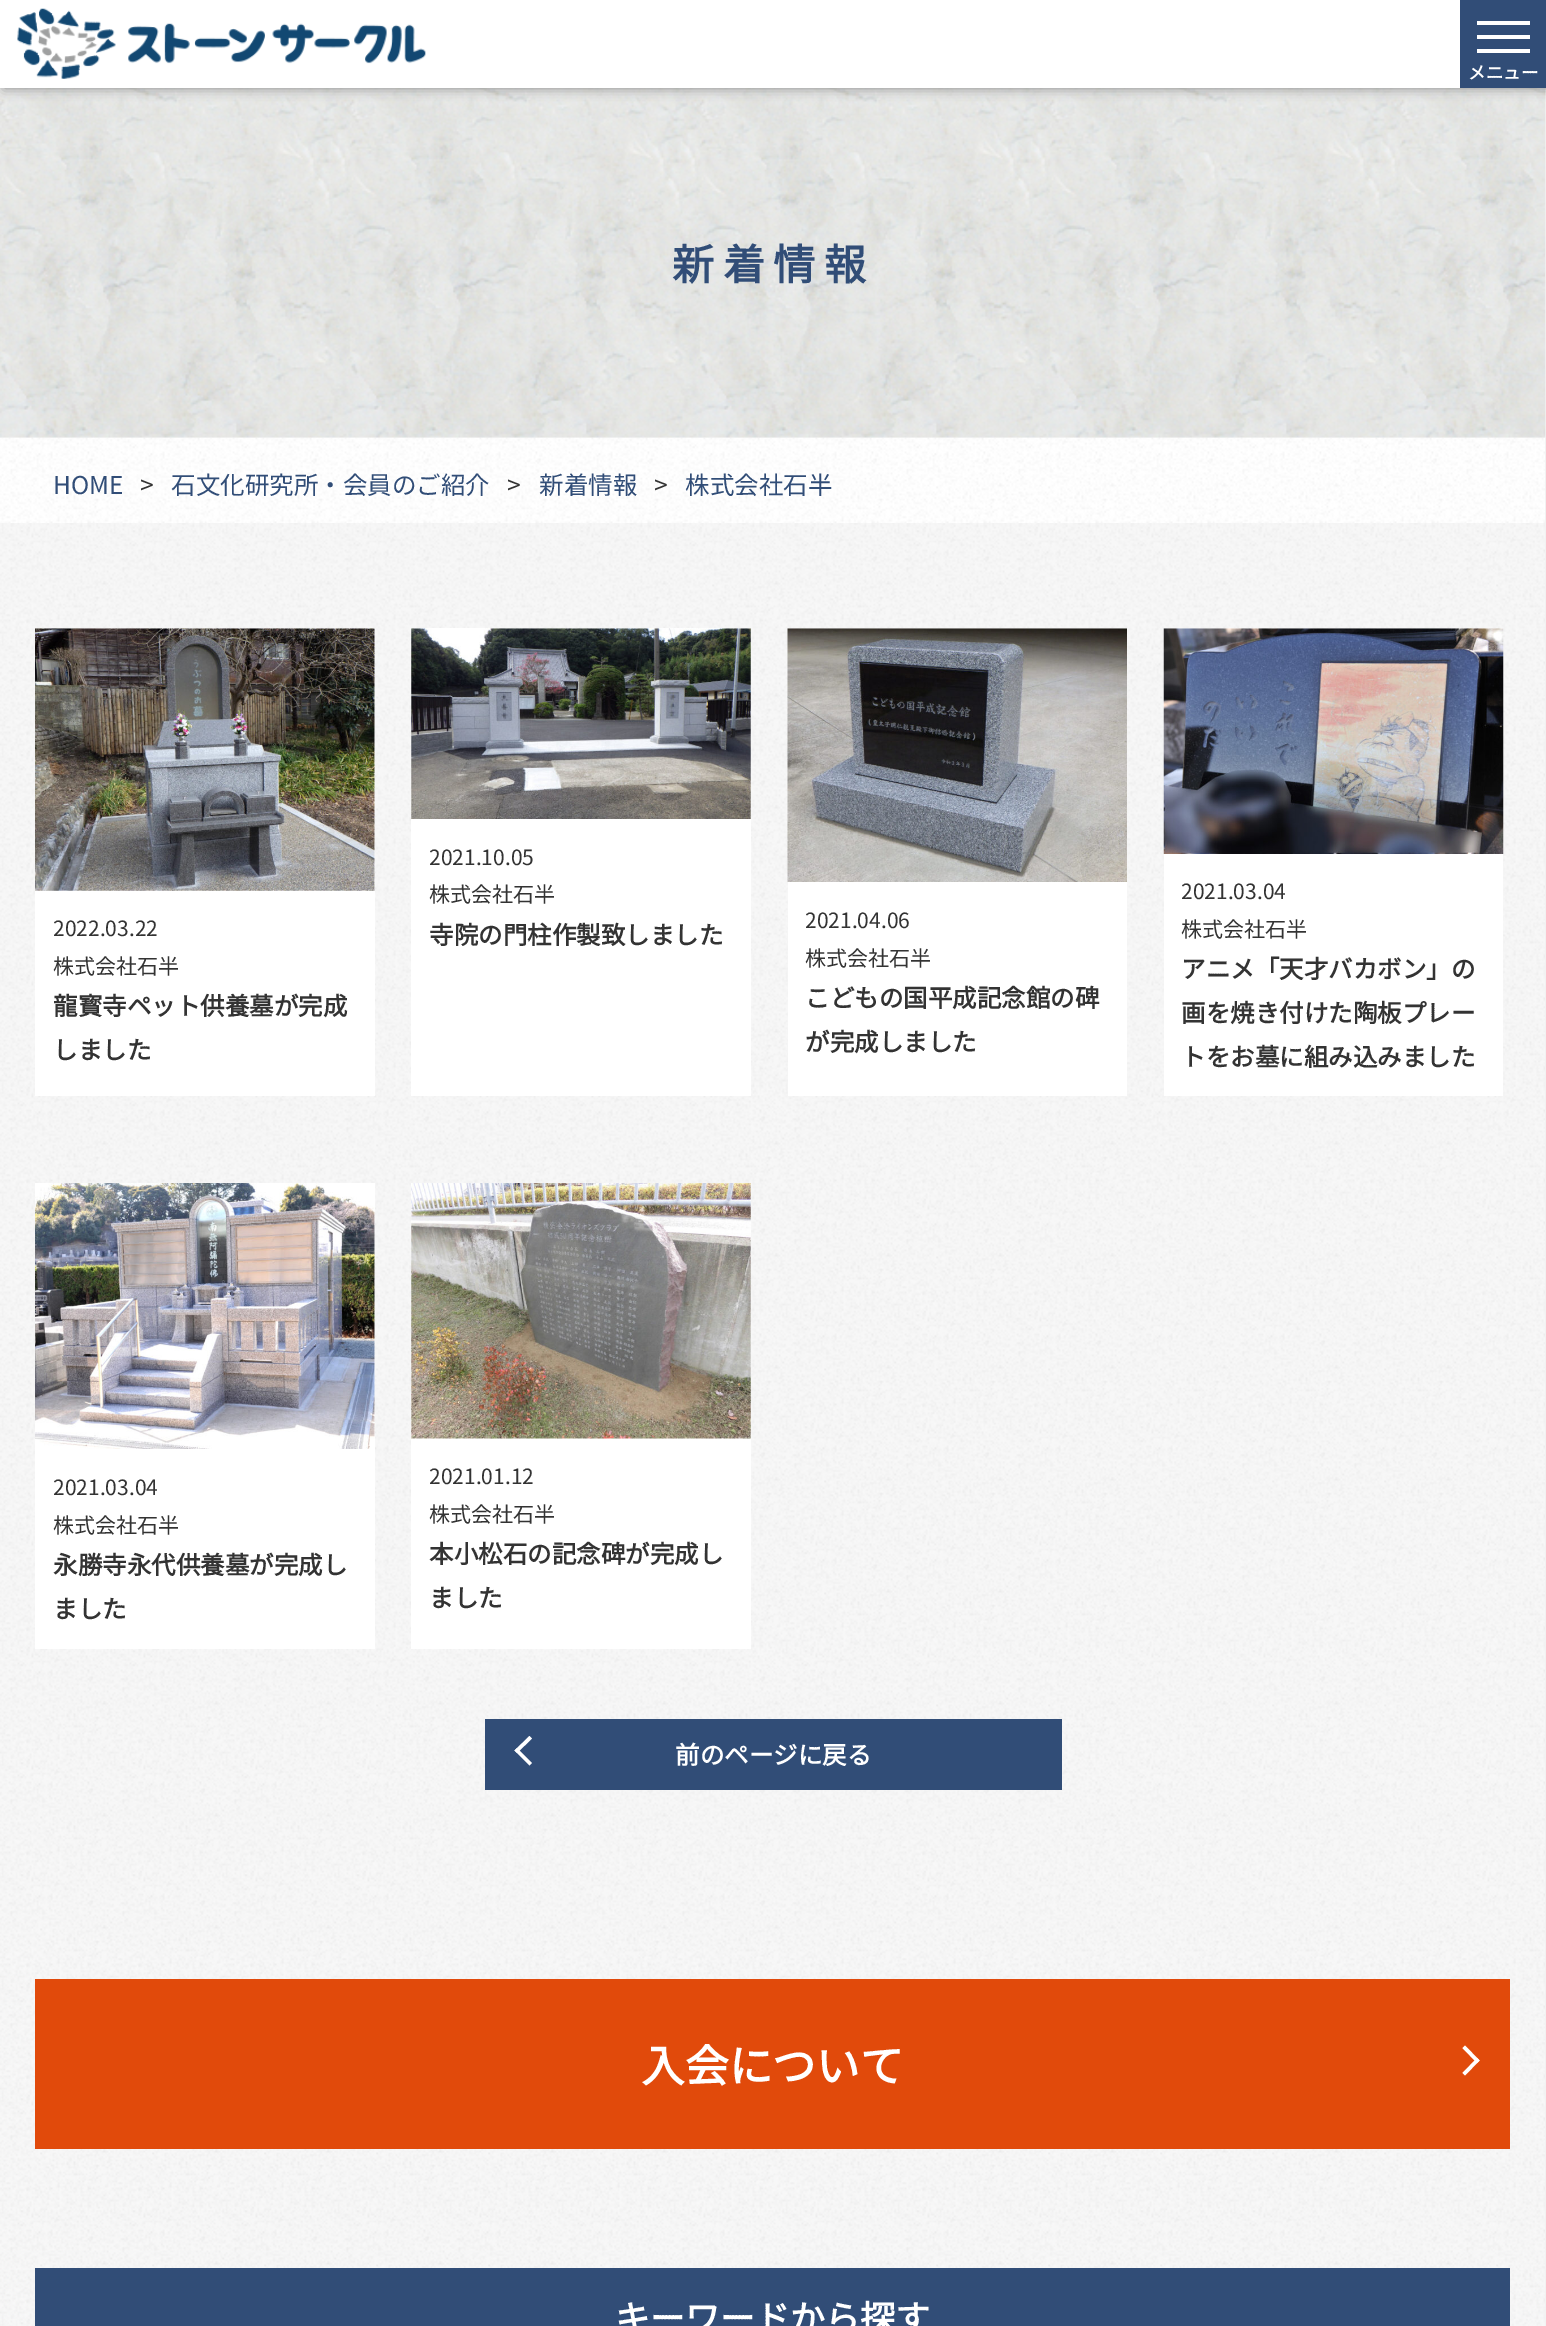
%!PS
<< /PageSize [1546 2326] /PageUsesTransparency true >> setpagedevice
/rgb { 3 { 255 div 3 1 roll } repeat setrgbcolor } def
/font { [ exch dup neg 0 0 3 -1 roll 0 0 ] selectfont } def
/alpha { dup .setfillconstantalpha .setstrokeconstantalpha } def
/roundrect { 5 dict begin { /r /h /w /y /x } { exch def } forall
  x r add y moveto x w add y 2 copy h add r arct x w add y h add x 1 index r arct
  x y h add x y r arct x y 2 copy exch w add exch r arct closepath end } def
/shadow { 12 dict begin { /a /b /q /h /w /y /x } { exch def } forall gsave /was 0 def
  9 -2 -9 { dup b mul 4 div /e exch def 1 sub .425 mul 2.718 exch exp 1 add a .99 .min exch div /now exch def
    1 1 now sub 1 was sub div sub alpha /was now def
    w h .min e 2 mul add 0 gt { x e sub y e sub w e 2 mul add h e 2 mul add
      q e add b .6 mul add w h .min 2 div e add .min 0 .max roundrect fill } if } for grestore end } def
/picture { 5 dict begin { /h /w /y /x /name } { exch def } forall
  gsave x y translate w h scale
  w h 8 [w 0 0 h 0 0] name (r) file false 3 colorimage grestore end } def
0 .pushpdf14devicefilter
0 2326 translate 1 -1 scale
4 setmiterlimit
242 242 242 rgb
0 0 1546 2326 rectfill
(img/2.rgb) 0 437 1545 1889 picture
(img/4.rgb) 0 437 1545 86 picture
(img/3.rgb) 0 88 1546 350 picture
136 136 136 rgb
4 0 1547 88 0 6 1 shadow
255 255 255 rgb
0 0 1460 88 rectfill
(img/1.rgb) 17 8 409 71 picture
[
  [1460 0 86 88 49 77 119]
  [1477 21 53 4 255 255 255]
  [1477 35 53 4 255 255 255]
  [1477 49 53 4 255 255 255]
  [35 628 340 468 255 255 255]
] { aload pop rgb rectfill } forall
(img/5.rgb) 35 628 340 263 picture
411 628 340 468 rectfill
(img/6.rgb) 411 628 340 191 picture
788 628 339 468 rectfill
(img/7.rgb) 787 628 340 254 picture
1164 628 339 468 rectfill
(img/8.rgb) 1163 628 341 226 picture
35 1183 340 466 rectfill
(img/9.rgb) 35 1183 340 266 picture
411 1183 340 466 rectfill
(img/10.rgb) 411 1183 340 256 picture
49 77 119 rgb
485 1719 577 71 rectfill
255 255 255 rgb
529.5 1765.5 moveto 514.5 1750.5 lineto 517 1748 lineto 532 1763 lineto closepath fill
517 1753 moveto 514.5 1750.5 lineto 529.5 1736 lineto 532 1738.5 lineto closepath fill
225 74 11 rgb
35 1979 1475 170 rectfill
255 255 255 rgb
1465 2045.5 moveto 1479.5 2060.5 lineto 1477 2063 lineto 1462.5 2048 lineto closepath fill
1477 2058 moveto 1479.5 2060.5 lineto 1465 2075.5 lineto 1462.5 2073 lineto closepath fill
49 77 119 rgb
35 2268 1475 58 rectfill
/NotoSansCJKJP-Bold 17.5 font
255 255 255 rgb
1468 79 moveto (メニュー) show
/NotoSansCJKJP-Bold 42 font
49 77 119 rgb
672 280 moveto 8.5 0 (新着情報) ashow
/NotoSansCJKJP-Regular 24.5 font
53 494 moveto (HOME) show
51 51 51 rgb
140 494 moveto (>) show
49 77 119 rgb
171 494 moveto (石文化研究所・会員のご紹介) show
51 51 51 rgb
507 494 moveto (>) show
49 77 119 rgb
539 494 moveto (新着情報) show
51 51 51 rgb
654 494 moveto (>) show
49 77 119 rgb
685 494 moveto (株式会社石半) show
/NotoSansCJKJP-Regular 21 font
51 51 51 rgb
53 936 moveto (2022.03.22) show
53 974 moveto (株式会社石半) show
/NotoSansCJKJP-Bold 24.5 font
53 1015 moveto (龍寳寺ペット供養墓が完成) show
53 1059 moveto (しました) show
/NotoSansCJKJP-Regular 21 font
429 865 moveto (2021.10.05) show
429 902 moveto (株式会社石半) show
/NotoSansCJKJP-Bold 24.5 font
429 944 moveto (寺院の門柱作製致しました) show
/NotoSansCJKJP-Regular 21 font
805 928 moveto (2021.04.06) show
805 966 moveto (株式会社石半) show
/NotoSansCJKJP-Bold 24.5 font
805 1007 moveto (こどもの国平成記念館の碑) show
805 1051 moveto (が完成しました) show
/NotoSansCJKJP-Regular 21 font
1181 899 moveto (2021.03.04) show
1181 937 moveto (株式会社石半) show
/NotoSansCJKJP-Bold 24.5 font
[
  [(アニメ「天才バカボン」の) 1181 978]
  [(画を焼き付けた陶板プレー) 1181 1022]
  [(トをお墓に組み込みました) 1181 1066]
] { aload pop moveto show } forall
/NotoSansCJKJP-Regular 21 font
53 1495 moveto (2021.03.04) show
53 1533 moveto (株式会社石半) show
/NotoSansCJKJP-Bold 24.5 font
53 1574 moveto (永勝寺永代供養墓が完成し) show
53 1618 moveto (ました) show
/NotoSansCJKJP-Regular 21 font
429 1484 moveto (2021.01.12) show
429 1522 moveto (株式会社石半) show
/NotoSansCJKJP-Bold 24.5 font
429 1563 moveto (本小松石の記念碑が完成し) show
429 1607 moveto (ました) show
255 255 255 rgb
675 1764 moveto (前のページに戻る) show
/NotoSansCJKJP-Bold 43.75 font
641 2082 moveto (入会について) show
/NotoSansCJKJP-Bold 35 font
615 2331 moveto (キーワードから探す) show
.poppdf14devicefilter showpage
